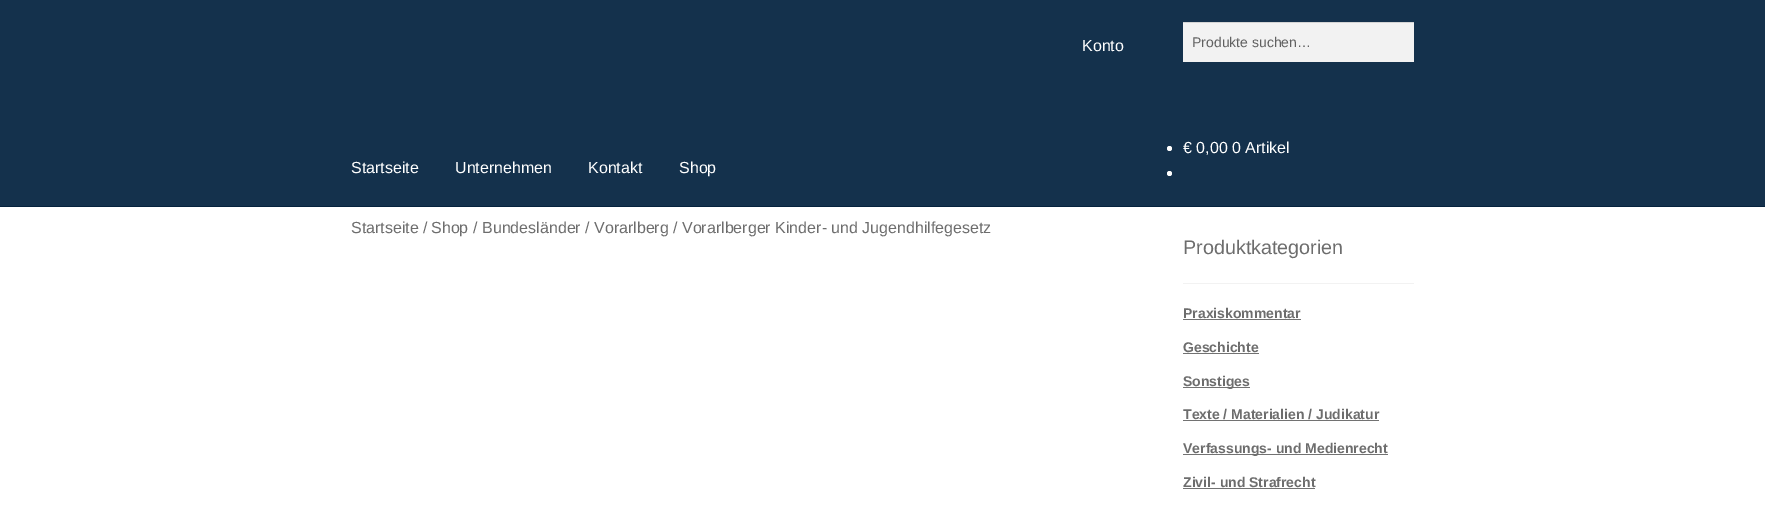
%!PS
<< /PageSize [1765 506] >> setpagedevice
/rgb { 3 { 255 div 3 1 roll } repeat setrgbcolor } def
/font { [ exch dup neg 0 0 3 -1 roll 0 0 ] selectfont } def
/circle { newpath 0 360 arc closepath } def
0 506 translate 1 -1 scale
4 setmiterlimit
255 255 255 rgb
0 0 1765 506 rectfill
[
  [0 0 1765 206 20 49 76]
  [0 206 1765 1 5 34 61]
  [1183 23 231 39 242 242 242]
  [1183 22 231 1 212 212 212]
] { aload pop rgb rectfill } forall
255 255 255 rgb
1169.5 148.5 2.5 circle fill
1169.5 173.5 2.5 circle fill
[
  [1183 283 231 1 242 242 242]
  [1183 319 118 1 114 114 114]
  [1183 353 76 1 114 114 114]
  [1183 387 67 1 114 114 114]
  [1183 420 196 1 114 114 114]
  [1183 454 205 1 114 114 114]
  [1183 488 132 1 114 114 114]
] { aload pop rgb rectfill } forall
/LiberationSans-Regular 16 font
255 255 255 rgb
1082 51 moveto (Konto) show
/LiberationSans-Regular 14 font
97 97 97 rgb
1192 47 moveto (Produkte suchen…) show
/LiberationSans-Regular 16 font
255 255 255 rgb
[
  [(€ 0,00 0 Artikel) 1183 153]
  [(Startseite) 351 173]
  [(Unternehmen) 455 173]
  [(Kontakt) 588 173]
  [(Shop) 679 173]
] { aload pop moveto show } forall
109 109 109 rgb
[
  [(Startseite) 351 233]
  [(/) 423 233]
  [(Shop) 431 233]
  [(/) 473 233]
  [(Bundesländer) 482 233]
  [(/) 585 233]
  [(Vorarlberg) 594 233]
  [(/ Vorarlberger Kinder- und Jugendhilfegesetz) 673 233]
] { aload pop moveto show } forall
/LiberationSans-Regular 19.75 font
1183 254 moveto (Produktkategorien) show
/LiberationSans-Bold 14 font
[
  [(Praxiskommentar) 1183 318]
  [(Geschichte) 1183 352]
  [(Sonstiges) 1183 386]
  [(Texte / Materialien / Judikatur) 1183 419]
  [(Verfassungs- und Medienrecht) 1183 453]
  [(Zivil- und Strafrecht) 1183 487]
] { aload pop moveto show } forall
showpage
